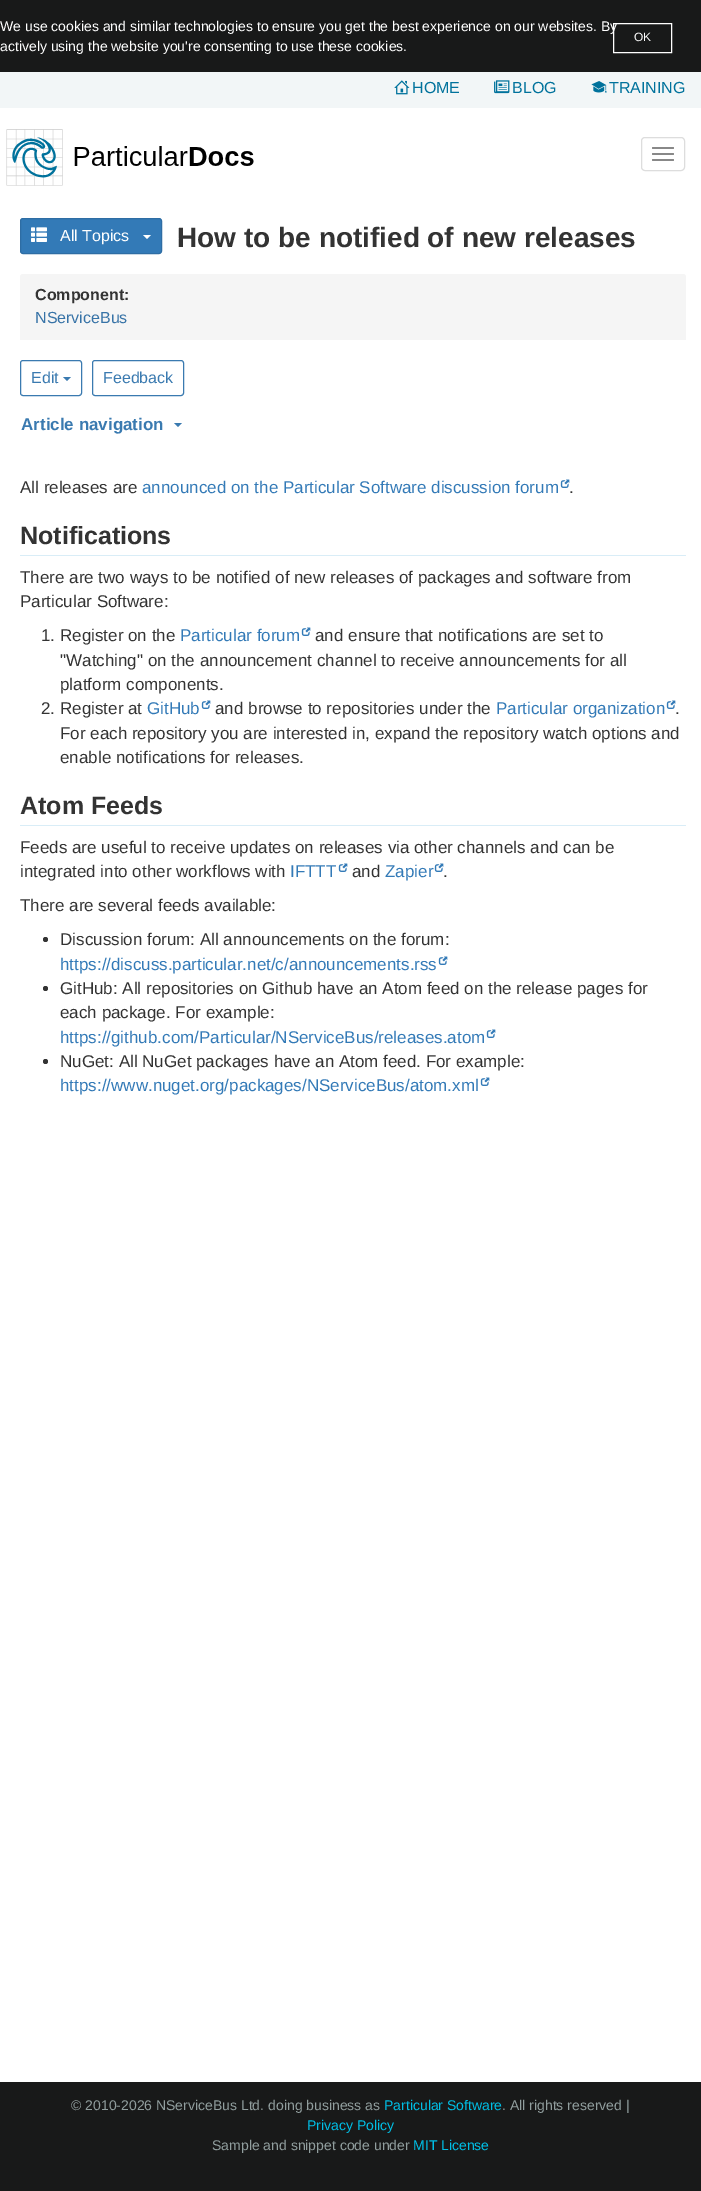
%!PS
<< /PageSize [701 2191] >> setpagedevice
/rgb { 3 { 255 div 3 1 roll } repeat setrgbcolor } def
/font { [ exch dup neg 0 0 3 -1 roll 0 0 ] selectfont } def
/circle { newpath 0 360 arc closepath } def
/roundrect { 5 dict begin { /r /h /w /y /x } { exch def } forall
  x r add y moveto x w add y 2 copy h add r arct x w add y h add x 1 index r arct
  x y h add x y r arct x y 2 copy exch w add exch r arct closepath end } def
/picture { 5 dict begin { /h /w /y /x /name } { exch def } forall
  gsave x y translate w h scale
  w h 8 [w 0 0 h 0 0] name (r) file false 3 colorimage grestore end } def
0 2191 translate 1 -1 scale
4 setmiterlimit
255 255 255 rgb
0 0 701 2191 rectfill
24 25 25 rgb
0 0 701 72 rectfill
255 255 255 rgb
613.5 23.5 58 29 rectstroke
242 246 247 rgb
0 72 701 36 rectfill
(img/1.rgb) 394 80 16 15 picture
(img/2.rgb) 494 80 16 14 picture
(img/3.rgb) 591 81 16 12 picture
(img/4.rgb) 6 129 248 57 picture
221 221 221 rgb
641.5 137.5 43 33 3.5 roundrect stroke
136 136 136 rgb
652 147 22 2 1 roundrect fill
652 153 22 2 1 roundrect fill
652 159 22 2 1 roundrect fill
51 122 183 rgb
20.5 218.5 141 35 2.5 roundrect gsave fill grestore
46 109 164 rgb
stroke
(img/5.rgb) 31 227 16 15 picture
255 255 255 rgb
143 235 moveto 151 235 lineto 147 239 lineto closepath fill
245 245 245 rgb
23 274 moveto 683 274 lineto 684.5 274 686 275.5 686 277 curveto 686 340 lineto 20 340 lineto 20 277 lineto 20 275.5 21.5 274 23 274 curveto closepath fill
58 122 176 rgb
20.5 360.5 61 35 2.5 roundrect stroke
63 377 moveto 71 377 lineto 67 381 lineto closepath fill
92.5 360.5 91 35 2.5 roundrect stroke
174 423 moveto 182 423 lineto 178 427 lineto closepath fill
(img/6.rgb) 560 479 10 9 picture
217 237 247 rgb
20 555 666 1 rectfill
(img/6.rgb) 301 627 10 9 picture
(img/6.rgb) 201 700 10 9 picture
(img/6.rgb) 666 700 10 9 picture
20 825 666 1 rectfill
(img/6.rgb) 338 863 10 9 picture
(img/6.rgb) 434 863 10 9 picture
51 51 51 rgb
45.5 939.5 2.5 circle fill
(img/6.rgb) 438 956 10 9 picture
45.5 988.5 2.5 circle fill
(img/6.rgb) 486 1029 10 9 picture
45.5 1061.5 2.5 circle fill
(img/6.rgb) 480 1077 10 9 picture
24 25 25 rgb
0 2082 701 109 rectfill
/LiberationSans-Regular 14 font
255 255 255 rgb
0 31 moveto (We use cookies and similar technologies to ensure you get the best experience on our websites. By) show
/LiberationSans-Regular 12 font
634 41 moveto (OK) show
/LiberationSans-Regular 14 font
0 51 moveto (actively using the website you're consenting to use these cookies.) show
/LiberationSans-Regular 16 font
0 114 156 rgb
[
  [(HOME) 412 93]
  [(BLOG) 512 93]
  [(TRAINING) 609 93]
] { aload pop moveto show } forall
255 255 255 rgb
60 241 moveto (All Topics) show
/LiberationSans-Bold 28 font
51 51 51 rgb
177 247 moveto (How to be notified of new releases) show
/LiberationSans-Bold 16 font
35 300 moveto (Component:) show
/LiberationSans-Regular 16 font
55 115 167 rgb
35 323 moveto (NServiceBus) show
58 122 176 rgb
31 383 moveto (Edit) show
103 383 moveto (Feedback) show
/LiberationSans-Bold 17 font
21 430 moveto (Article navigation) show
/LiberationSans-Regular 17 font
51 51 51 rgb
20 493 moveto (All releases are) show
51 122 183 rgb
142 493 moveto (announced on the Particular Software discussion forum) show
51 51 51 rgb
569 493 moveto (.) show
/LiberationSans-Bold 25 font
20 544 moveto (Notifications) show
/LiberationSans-Regular 17 font
[
  [(There are two ways to be notified of new releases of packages and software from) 20 583]
  [(Particular Software:) 20 607]
  [(1. Register on the) 41 641]
] { aload pop moveto show } forall
51 122 183 rgb
180 641 moveto (Particular forum) show
51 51 51 rgb
[
  [(and ensure that notifications are set to) 315 641]
  [("Watching" on the announcement channel to receive announcements for all) 60 666]
  [(platform components.) 60 690]
  [(2. Register at) 41 714]
] { aload pop moveto show } forall
51 122 183 rgb
147 714 moveto (GitHub) show
51 51 51 rgb
215 714 moveto (and browse to repositories under the) show
51 122 183 rgb
496 714 moveto (Particular organization) show
51 51 51 rgb
[
  [(.) 675 714]
  [(For each repository you are interested in, expand the repository watch options and) 60 739]
  [(enable notifications for releases.) 60 763]
] { aload pop moveto show } forall
/LiberationSans-Bold 25 font
20 814 moveto (Atom Feeds) show
/LiberationSans-Regular 17 font
20 853 moveto (Feeds are useful to receive updates on releases via other channels and can be) show
20 877 moveto (integrated into other workflows with) show
51 122 183 rgb
290 877 moveto (IFTTT) show
51 51 51 rgb
352 877 moveto (and) show
51 122 183 rgb
385 877 moveto (Zapier) show
51 51 51 rgb
[
  [(.) 443 877]
  [(There are several feeds available:) 20 911]
  [(Discussion forum: All announcements on the forum:) 60 945]
] { aload pop moveto show } forall
51 122 183 rgb
60 970 moveto (https://discuss.particular.net/c/announcements.rss) show
51 51 51 rgb
60 994 moveto (GitHub: All repositories on Github have an Atom feed on the release pages for) show
60 1018 moveto (each package. For example:) show
51 122 183 rgb
60 1043 moveto (https://github.com/Particular/NServiceBus/releases.atom) show
51 51 51 rgb
60 1067 moveto (NuGet: All NuGet packages have an Atom feed. For example:) show
51 122 183 rgb
60 1091 moveto (https://www.nuget.org/packages/NServiceBus/atom.xml) show
/LiberationSans-Regular 14 font
145 158 158 rgb
71 2110 moveto (© 2010-2026 NServiceBus Ltd. doing business as) show
0 191 230 rgb
384 2110 moveto (Particular Software) show
145 158 158 rgb
502 2110 moveto (. All rights reserved |) show
0 191 230 rgb
307 2130 moveto (Privacy Policy) show
145 158 158 rgb
212 2150 moveto (Sample and snippet code under) show
0 191 230 rgb
413 2150 moveto (MIT License) show
showpage
